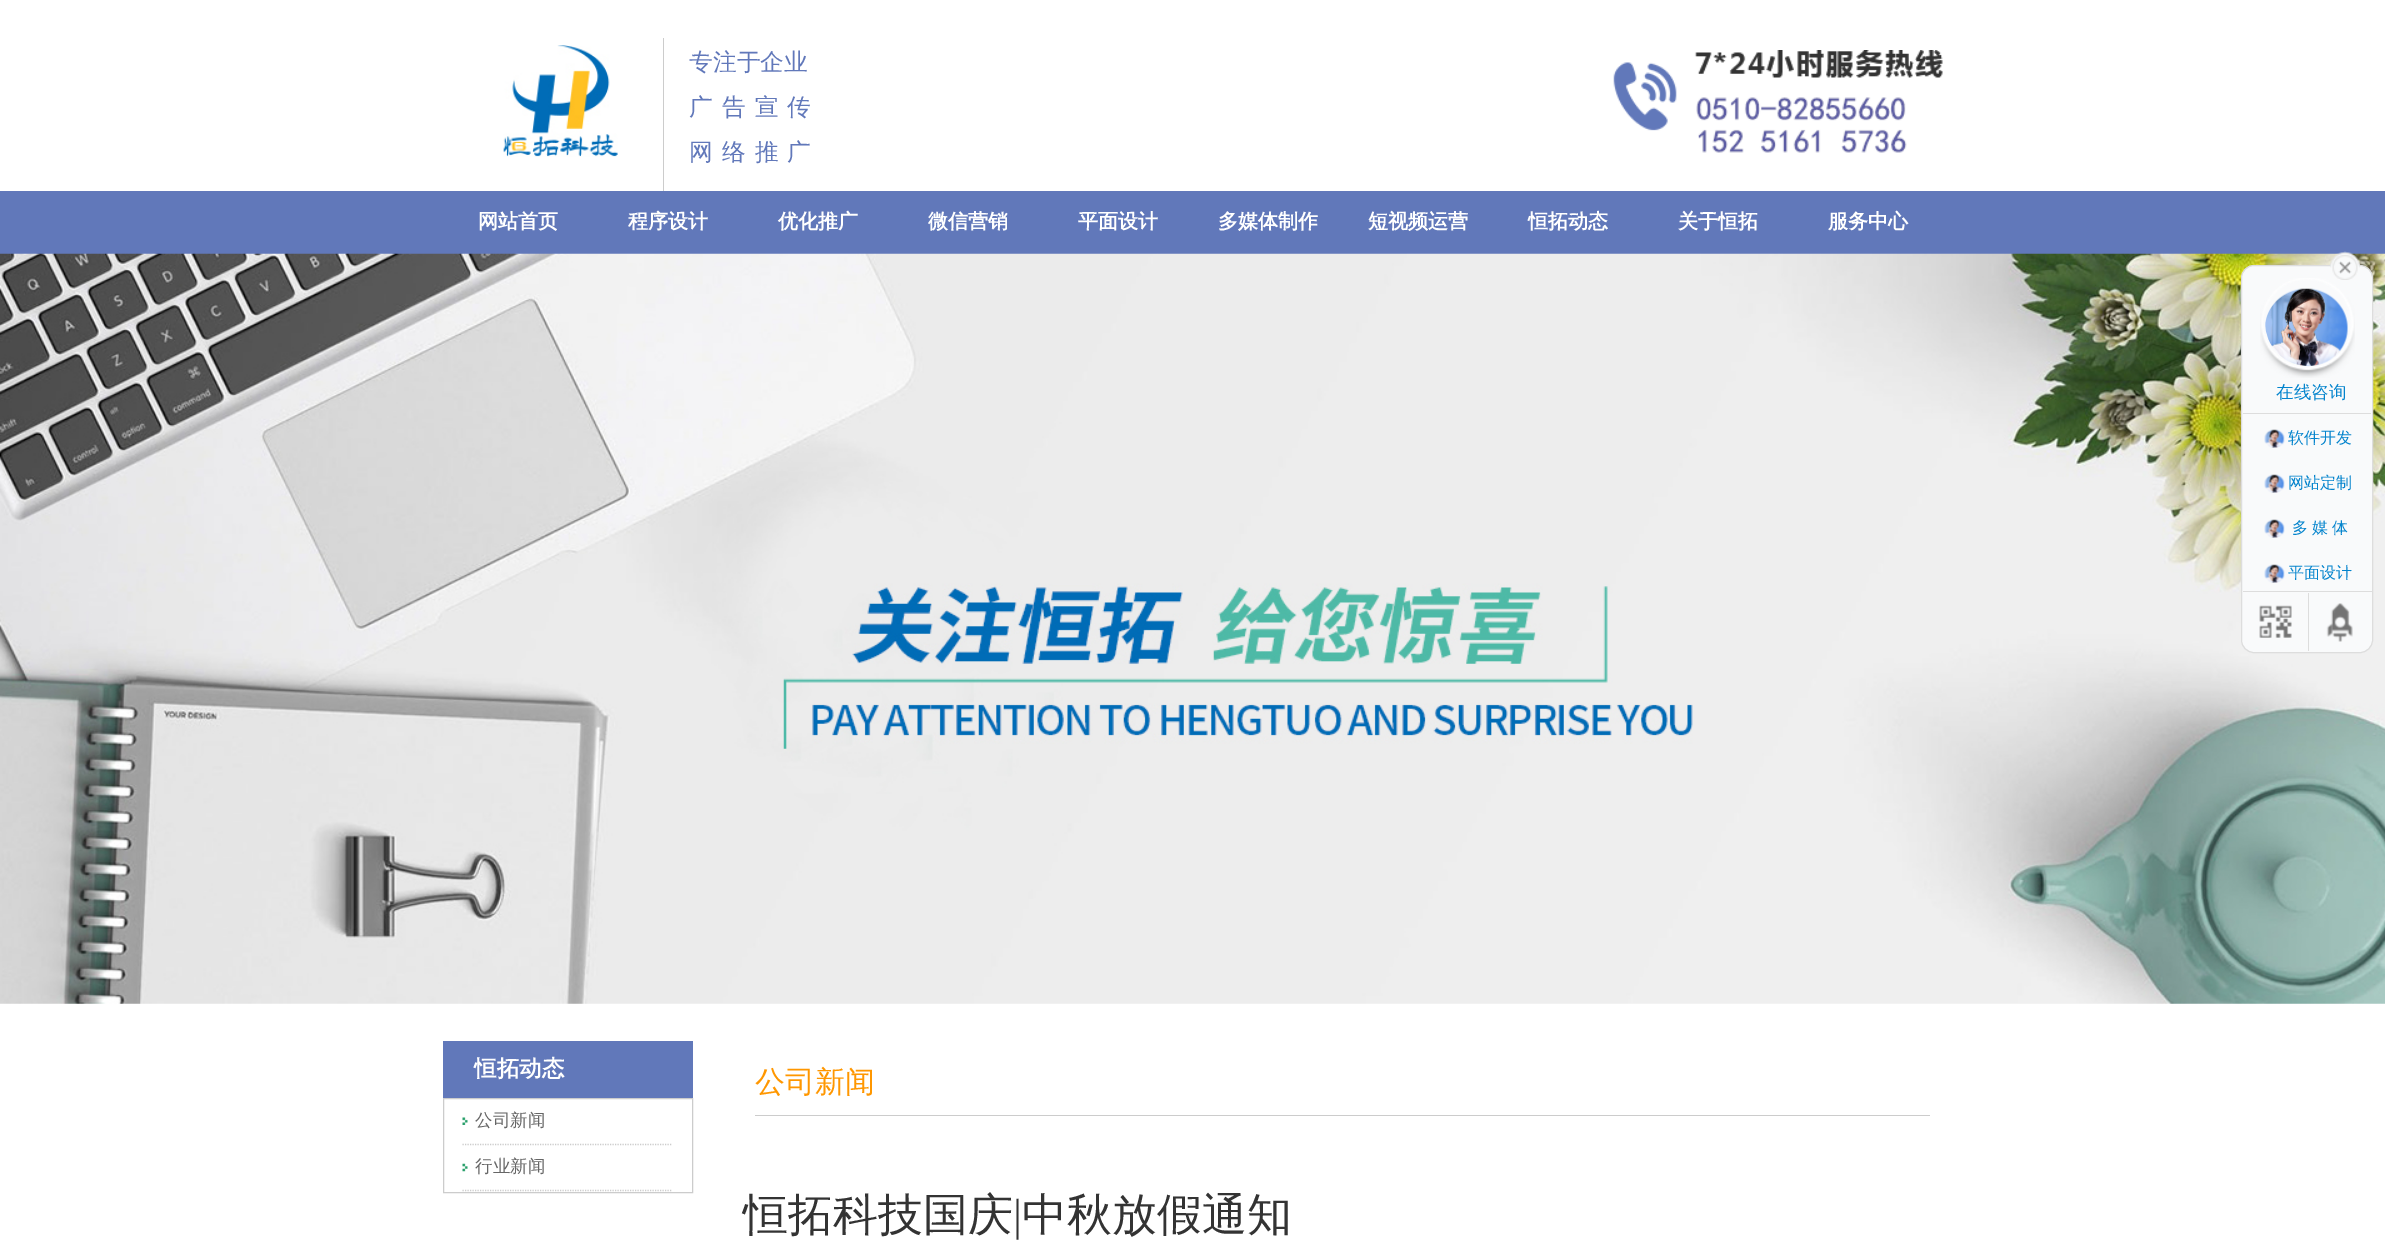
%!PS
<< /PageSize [2385 1244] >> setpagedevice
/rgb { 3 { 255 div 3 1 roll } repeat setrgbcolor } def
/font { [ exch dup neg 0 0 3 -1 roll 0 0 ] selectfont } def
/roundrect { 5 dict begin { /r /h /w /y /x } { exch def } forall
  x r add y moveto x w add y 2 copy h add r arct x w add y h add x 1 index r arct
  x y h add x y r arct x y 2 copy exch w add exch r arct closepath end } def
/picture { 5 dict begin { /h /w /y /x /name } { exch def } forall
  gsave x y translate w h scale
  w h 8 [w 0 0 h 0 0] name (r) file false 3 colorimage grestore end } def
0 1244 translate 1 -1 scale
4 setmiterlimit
255 255 255 rgb
0 0 2385 1244 rectfill
(img/1.rgb) 503 45 115 112 picture
204 204 204 rgb
663 38 1 153 rectfill
(img/2.rgb) 1613 50 330 103 picture
97 120 186 rgb
0 191 2385 63 rectfill
(img/3.rgb) 0 253 2385 751 picture
249 250 251 rgb
2241.5 265.5 131 387 12.5 roundrect gsave fill grestore
221 221 221 rgb
stroke
(img/6.rgb) 2265 288 83 79 picture
(img/5.rgb) 2260 278 95 100 picture
(img/4.rgb) 2330 251 30 29 picture
2243 413 128 1 rectfill
2243 591 130 1 rectfill
(img/7.rgb) 2264 429 21 19 picture
(img/7.rgb) 2264 474 21 19 picture
(img/7.rgb) 2264 519 21 19 picture
(img/7.rgb) 2264 564 21 19 picture
(img/8.rgb) 2259 605 33 33 picture
2308 593 1 58 rectfill
(img/9.rgb) 2326 603 27 39 picture
97 120 186 rgb
443 1041 250 57 rectfill
204 204 204 rgb
443.5 1098.5 249 94 rectstroke
(img/10.rgb) 462 1117 6 8 picture
1.2 setlinewidth
[1.25 1.25] 0 setdash
462.5 1144.5 moveto 672.5 1144.5 lineto stroke
(img/11.rgb) 462 1163 6 9 picture
462.5 1190.5 moveto 672.5 1190.5 lineto stroke
755 1115 1175 1 rectfill
/WenQuanYiZenHei-Medium 23.75 font
97 120 186 rgb
689 70 moveto (专注于企业) show
689 115 moveto 9 0 (广告宣传) ashow
689 160 moveto 9 0 (网络推广) ashow
/WenQuanYiZenHei-Bold 20 font
255 255 255 rgb
[
  [(网站首页) 478 228]
  [(程序设计) 628 228]
  [(优化推广) 778 228]
  [(微信营销) 928 228]
  [(平面设计) 1078 228]
  [(多媒体制作) 1218 228]
  [(短视频运营) 1368 228]
  [(恒拓动态) 1528 228]
  [(关于恒拓) 1678 228]
  [(服务中心) 1828 228]
] { aload pop moveto show } forall
/WenQuanYiZenHei-Medium 17.5 font
4 132 205 rgb
2276 398 moveto (在线咨询) show
/WenQuanYiZenHei-Medium 16 font
2288 443 moveto (软件开发) show
2288 488 moveto (网站定制) show
2292 533 moveto 4 0 (多媒体) ashow
2288 578 moveto (平面设计) show
/WenQuanYiZenHei-Bold 22.5 font
255 255 255 rgb
474 1076 moveto (恒拓动态) show
/WenQuanYiZenHei-Medium 17.5 font
102 102 102 rgb
475 1126 moveto (公司新闻) show
475 1172 moveto (行业新闻) show
/WenQuanYiZenHei-Medium 30 font
255 151 0 rgb
755 1092 moveto (公司新闻) show
/WenQuanYiZenHei-Medium 45 font
51 51 51 rgb
743 1230 moveto (恒拓科技国庆) show
/LiberationSerif-Regular 45 font
1013 1230 moveto (|) show
/WenQuanYiZenHei-Medium 45 font
1022 1230 moveto (中秋放假通知) show
showpage
